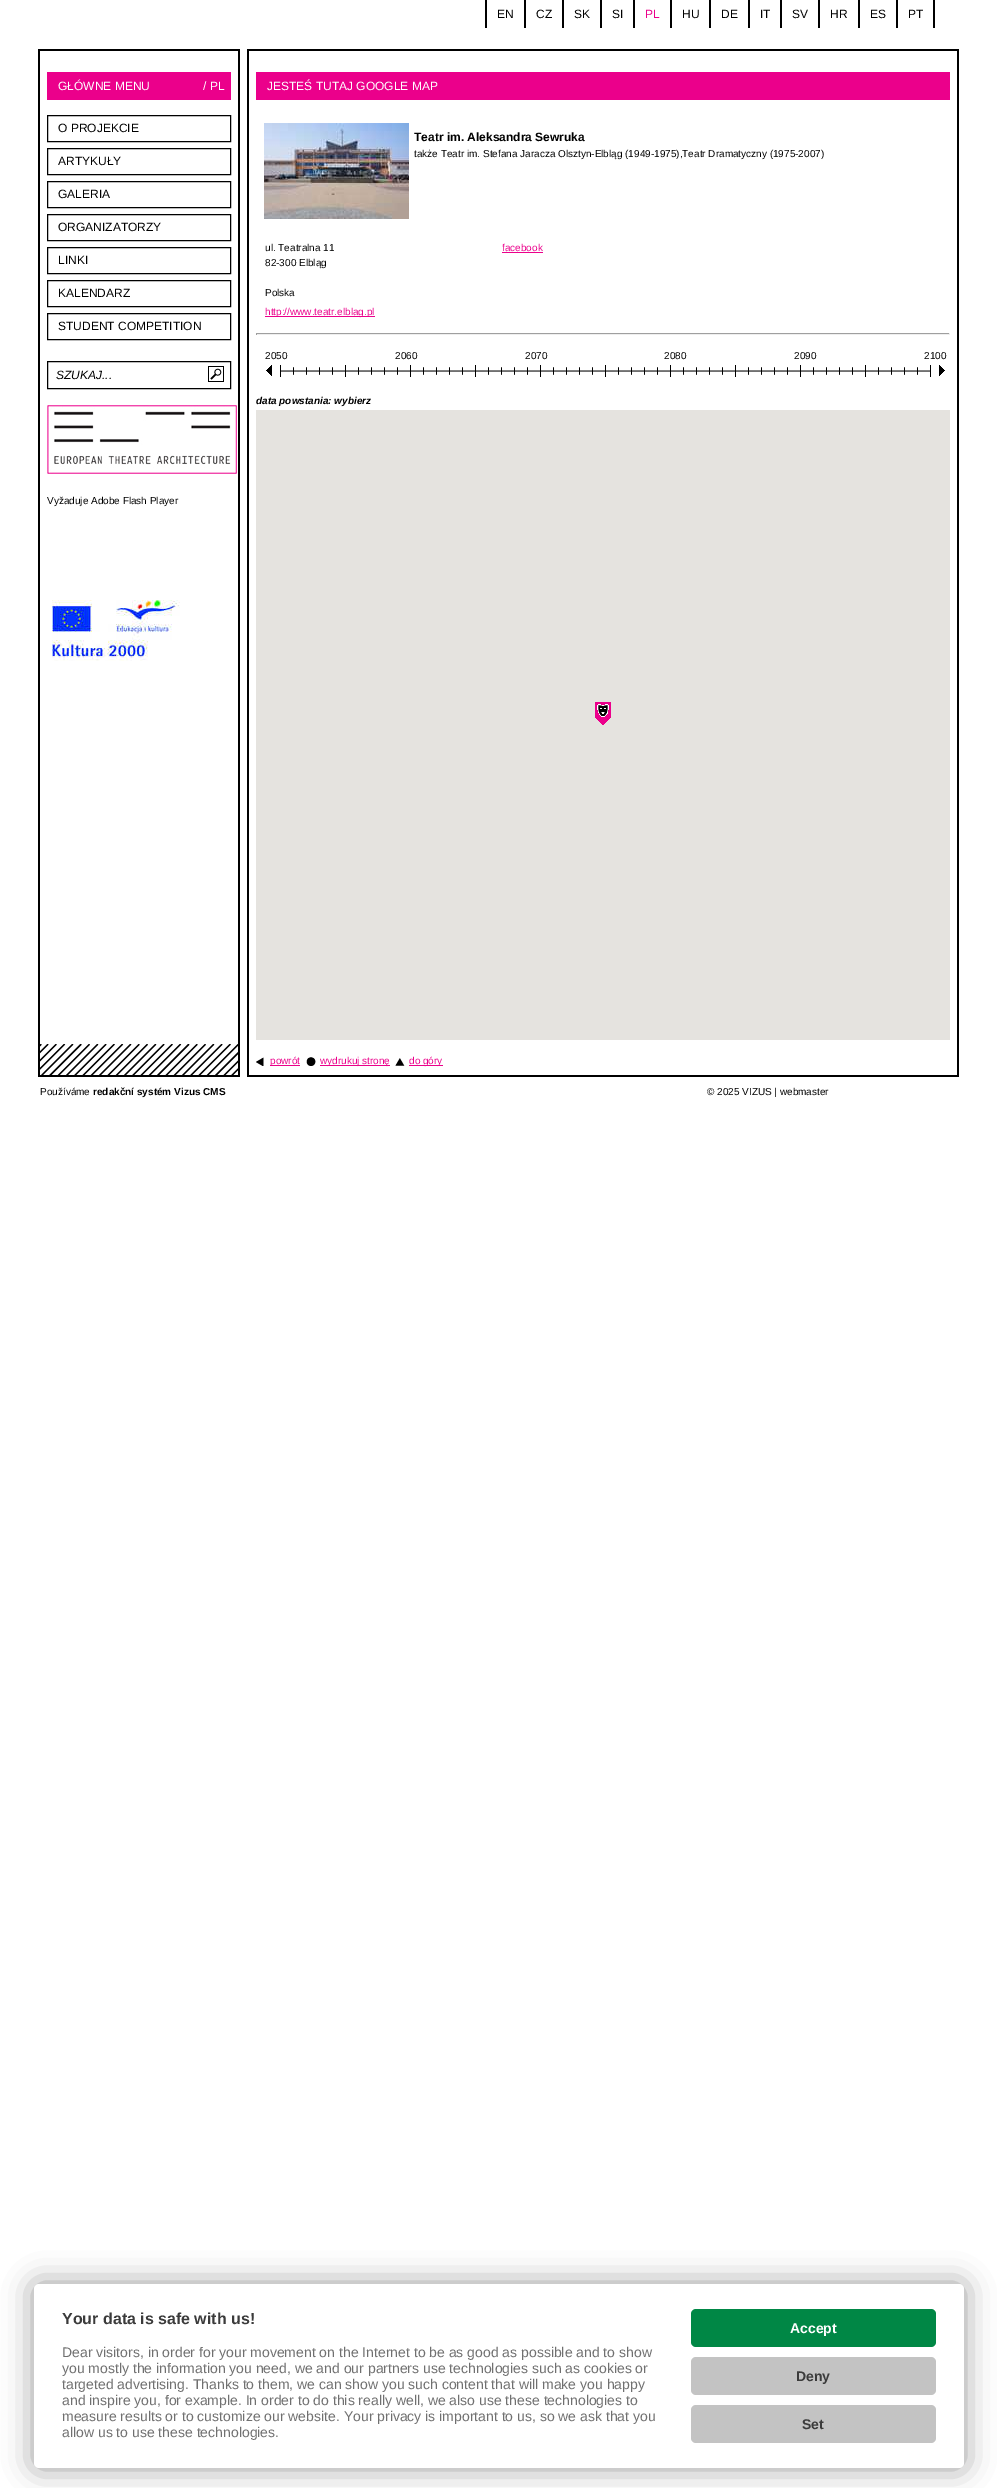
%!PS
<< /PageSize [997 2488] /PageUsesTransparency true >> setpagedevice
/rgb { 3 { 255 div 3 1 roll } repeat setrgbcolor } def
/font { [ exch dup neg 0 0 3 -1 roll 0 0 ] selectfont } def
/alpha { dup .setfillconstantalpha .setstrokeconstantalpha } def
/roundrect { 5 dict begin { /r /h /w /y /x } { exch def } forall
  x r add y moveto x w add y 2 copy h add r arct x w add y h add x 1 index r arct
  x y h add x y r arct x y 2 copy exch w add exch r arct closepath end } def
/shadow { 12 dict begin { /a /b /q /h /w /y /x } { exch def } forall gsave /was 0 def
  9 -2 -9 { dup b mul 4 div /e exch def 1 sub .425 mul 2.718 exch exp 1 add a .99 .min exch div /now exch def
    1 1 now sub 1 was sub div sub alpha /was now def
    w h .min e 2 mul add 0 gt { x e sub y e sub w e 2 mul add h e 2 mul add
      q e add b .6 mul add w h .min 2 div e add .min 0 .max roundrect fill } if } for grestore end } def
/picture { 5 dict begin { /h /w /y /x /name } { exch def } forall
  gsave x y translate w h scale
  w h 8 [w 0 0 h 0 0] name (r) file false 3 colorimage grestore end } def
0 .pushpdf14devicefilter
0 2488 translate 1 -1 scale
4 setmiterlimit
255 255 255 rgb
0 0 997 2488 rectfill
[
  [485 0 2 28 0 0 0]
  [524 0 2 28 0 0 0]
  [562 0 2 28 0 0 0]
  [600 0 2 28 0 0 0]
  [633 0 2 28 0 0 0]
  [670 0 2 28 0 0 0]
  [709 0 2 28 0 0 0]
  [748 0 2 28 0 0 0]
  [780 0 2 28 0 0 0]
  [818 0 2 28 0 0 0]
  [858 0 2 28 0 0 0]
  [896 0 2 28 0 0 0]
  [933 0 2 28 0 0 0]
] { aload pop rgb rectfill } forall
(img/1.rgb) 38 49 921 1026 picture
(img/2.rgb) 40 49 209 67 picture
235 0 139 rgb
47 72 184 28 rectfill
0 0 0 rgb
47.5 115.5 183 26 rectstroke
47.5 148.5 183 26 rectstroke
47.5 181.5 183 26 rectstroke
47.5 214.5 183 26 rectstroke
47.5 247.5 183 26 rectstroke
47.5 280.5 183 26 rectstroke
47.5 313.5 183 26 rectstroke
47.5 361.5 183 27 rectstroke
(img/3.rgb) 208 366 16 16 picture
(img/4.rgb) 47 405 190 69 picture
(img/5.rgb) 52 600 128 61 picture
249 49 708 2 rectfill
235 0 139 rgb
256 72 694 28 rectfill
(img/6.rgb) 264 123 145 96 picture
[
  [502 252 41 1 235 0 139]
  [265 316 110 1 235 0 139]
  [256 333 694 1 159 159 159]
  [949 333 1 2 238 238 238]
  [256 334 694 1 238 238 238]
  [256 333 1 2 159 159 159]
] { aload pop rgb rectfill } forall
(img/7.rgb) 280 365 651 12 picture
(img/8.rgb) 266 365 6 11 picture
(img/9.rgb) 939 365 6 11 picture
229 227 223 rgb
256 410 694 630 rectfill
(img/10.rgb) 595 702 11 23 picture
(img/11.rgb) 606 702 5 20 picture
(img/15.rgb) 38 1044 921 53 picture
(img/12.rgb) 256 1057 8 9 picture
235 0 139 rgb
270 1065 30 1 rectfill
(img/13.rgb) 306 1057 10 9 picture
320 1065 70 1 rectfill
(img/14.rgb) 395 1058 10 8 picture
409 1065 34 1 rectfill
0 0 0 rgb
34 2284 930 184 5 15 0.4 shadow
255 255 255 rgb
34 2284 930 184 5 roundrect fill
0 135 69 rgb
691 2309 245 38 5 roundrect fill
195 195 195 rgb
691 2357 245 38 5 roundrect fill
691 2405 245 38 5 roundrect fill
/LiberationSans-Regular 12 font
0 0 0 rgb
[
  [(EN) 497 18]
  [(CZ) 536 18]
  [(SK) 574 18]
  [(SI) 612 18]
] { aload pop moveto show } forall
235 0 139 rgb
645 18 moveto (PL) show
0 0 0 rgb
[
  [(HU) 682 18]
  [(DE) 721 18]
  [(IT) 760 18]
  [(SV) 792 18]
  [(HR) 830 18]
  [(ES) 870 18]
  [(PT) 908 18]
] { aload pop moveto show } forall
255 255 255 rgb
58 90 moveto (GŁÓWNE MENU) show
203 90 moveto (/ PL) show
0 0 0 rgb
[
  [(O PROJEKCIE) 58 132]
  [(ARTYKUŁY) 58 165]
  [(GALERIA) 58 198]
  [(ORGANIZATORZY) 58 231]
  [(LINKI) 58 264]
  [(KALENDARZ) 58 297]
  [(STUDENT COMPETITION) 58 330]
] { aload pop moveto show } forall
/LiberationSans-Italic 12 font
56 379 moveto (SZUKAJ...) show
/LiberationSans-Regular 10 font
47 504 moveto (Vyžaduje Adobe Flash Player) show
/LiberationSans-Regular 12 font
255 255 255 rgb
267 90 moveto (JESTEŚ TUTAJ GOOGLE MAP) show
/LiberationSans-Bold 12 font
0 0 0 rgb
414 141 moveto (Teatr im. Aleksandra Sewruka) show
/LiberationSans-Regular 10 font
[
  [(także Teatr im. Stefana Jaracza Olsztyn-Elbląg \(1949-1975\),Teatr Dramatyczny \(1975-2007\)) 414 157]
  [(ul. Teatralna 11) 265 251]
  [(82-300 Elbląg) 265 266]
  [(Polska) 265 296]
] { aload pop moveto show } forall
235 0 139 rgb
502 251 moveto (facebook) show
265 315 moveto (http://www.teatr.elblag.pl) show
0 0 0 rgb
[
  [(2050) 265 359]
  [(2060) 395 359]
  [(2070) 525 359]
  [(2080) 664 359]
  [(2090) 794 359]
  [(2100) 924 359]
] { aload pop moveto show } forall
/LiberationSans-BoldItalic 10 font
256 404 moveto (data powstania: wybierz) show
/LiberationSans-Regular 10 font
235 0 139 rgb
[
  [(powrót) 270 1064]
  [(wydrukuj stronę) 320 1064]
  [(do góry) 409 1064]
] { aload pop moveto show } forall
0 0 0 rgb
40 1095 moveto (Používáme) show
/LiberationSans-Bold 10 font
93 1095 moveto (redakční systém Vizus CMS) show
/LiberationSans-Regular 10 font
707 1095 moveto (© 2025 VIZUS | webmaster) show
/LiberationSans-Bold 16 font
59 59 59 rgb
62 2324 moveto (Your data is safe with us!) show
/LiberationSans-Regular 14 font
112 112 112 rgb
[
  [(Dear visitors, in order for your movement on the Internet to be as good as possible and to show) 62 2357]
  [(you mostly the information you need, we and our partners use technologies such as cookies or) 62 2373]
  [(targeted advertising. Thanks to them, we can show you such content that will make you happy) 62 2389]
  [(and inspire you, for example. In order to do this really well, we also use these technologies to) 62 2405]
  [(measure results or to customize our website. Your privacy is important to us, so we ask that you) 62 2421]
  [(allow us to use these technologies.) 62 2437]
] { aload pop moveto show } forall
/LiberationSans-Bold 14 font
255 255 255 rgb
790 2333 moveto (Accept) show
59 59 59 rgb
796 2381 moveto (Deny) show
802 2429 moveto (Set) show
.poppdf14devicefilter showpage
